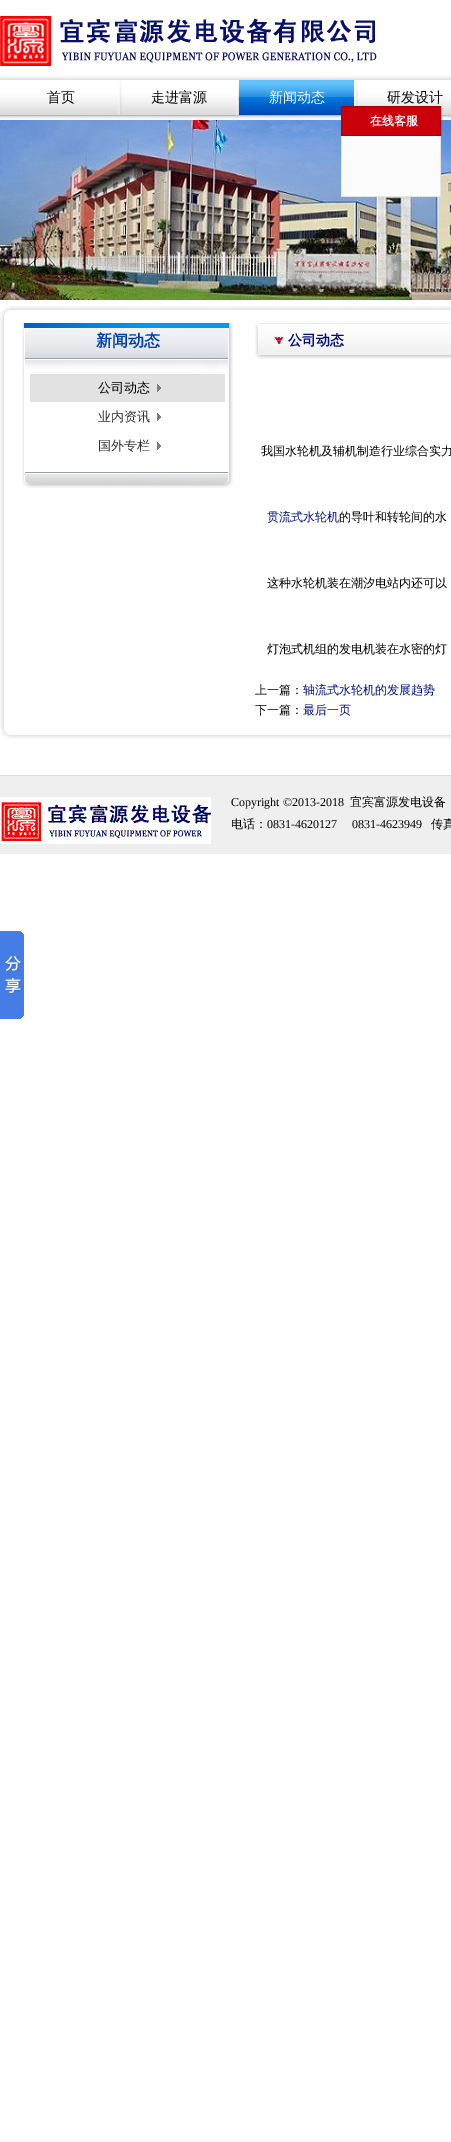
%!PS
<< /PageSize [451 2142] >> setpagedevice
/rgb { 3 { 255 div 3 1 roll } repeat setrgbcolor } def
/font { [ exch dup neg 0 0 3 -1 roll 0 0 ] selectfont } def
/picture { 5 dict begin { /h /w /y /x /name } { exch def } forall
  gsave x y translate w h scale
  w h 8 [w 0 0 h 0 0] name (r) file false 3 colorimage grestore end } def
0 2142 translate 1 -1 scale
4 setmiterlimit
255 255 255 rgb
0 0 451 2142 rectfill
(img/1.rgb) 0 16 377 50 picture
(img/2.rgb) 0 75 451 45 picture
(img/3.rgb) 118 81 4 34 picture
(img/4.rgb) 236 81 3 34 picture
(img/5.rgb) 239 80 115 35 picture
(img/6.rgb) 354 81 4 25 picture
(img/7.rgb) 0 120 451 180 picture
203 0 10 rgb
341.5 106.5 moveto 440.5 106.5 lineto 440.5 135.5 lineto 341.5 135.5 lineto closepath gsave fill grestore
175 0 9 rgb
stroke
[
  [342 136 98 60 252 252 252]
  [440 136 1 61 229 229 229]
  [341 196 100 1 229 229 229]
  [341 136 1 61 229 229 229]
] { aload pop rgb rectfill } forall
(img/8.rgb) 0 306 451 17 picture
(img/9.rgb) 0 323 4 397 picture
(img/10.rgb) 21 323 213 51 picture
(img/11.rgb) 22 374 211 87 picture
226 226 226 rgb
30 374 195 28 rectfill
(img/12.rgb) 157 384 4 8 picture
(img/13.rgb) 157 413 4 8 picture
(img/13.rgb) 157 442 4 8 picture
(img/14.rgb) 22 461 211 27 picture
(img/15.rgb) 255 323 196 36 picture
(img/16.rgb) 274 336 10 9 picture
(img/17.rgb) 0 720 451 19 picture
239 239 239 rgb
0 776 451 78 rectfill
221 221 221 rgb
0 775 451 1 rectfill
(img/18.rgb) 0 797 211 47 picture
(img/19.rgb) 0 931 24 88 picture
/WenQuanYiZenHei-Medium 14 font
0 0 0 rgb
47 102 moveto (首页) show
151 102 moveto (走进富源) show
255 255 255 rgb
269 102 moveto (新闻动态) show
0 0 0 rgb
387 102 moveto (研发设计) show
/WenQuanYiZenHei-Bold 12 font
255 255 255 rgb
370 125 moveto (在线客服) show
/WenQuanYiZenHei-Bold 16 font
0 63 176 rgb
96 346 moveto (新闻动态) show
/WenQuanYiZenHei-Medium 13 font
0 0 0 rgb
98 392 moveto (公司动态) show
51 51 51 rgb
98 421 moveto (业内资讯) show
98 450 moveto (国外专栏) show
/WenQuanYiZenHei-Bold 14 font
0 16 128 rgb
288 345 moveto (公司动态) show
/WenQuanYiZenHei-Medium 12 font
0 0 0 rgb
261 455 moveto (我国水轮机及辅机制造行业综合实力) show
0 16 128 rgb
267 521 moveto (贯流式水轮机) show
0 0 0 rgb
[
  [(的导叶和转轮间的水) 339 521]
  [(这种水轮机装在潮汐电站内还可以) 267 587]
  [(灯泡式机组的发电机装在水密的灯) 267 653]
  [(上一篇：) 255 694]
] { aload pop moveto show } forall
0 16 128 rgb
303 694 moveto (轴流式水轮机的发展趋势) show
0 0 0 rgb
255 714 moveto (下一篇：) show
0 16 128 rgb
303 714 moveto (最后一页) show
/LiberationSerif-Regular 12 font
0 0 0 rgb
231 806 moveto (Copyright ©2013-2018) show
/WenQuanYiZenHei-Medium 12 font
350 806 moveto (宜宾富源发电设备) show
231 828 moveto (电话：) show
/LiberationSerif-Regular 12 font
267 828 moveto (0831-4620127) show
352 828 moveto (0831-4623949) show
/WenQuanYiZenHei-Medium 12 font
431 828 moveto (传真) show
showpage
